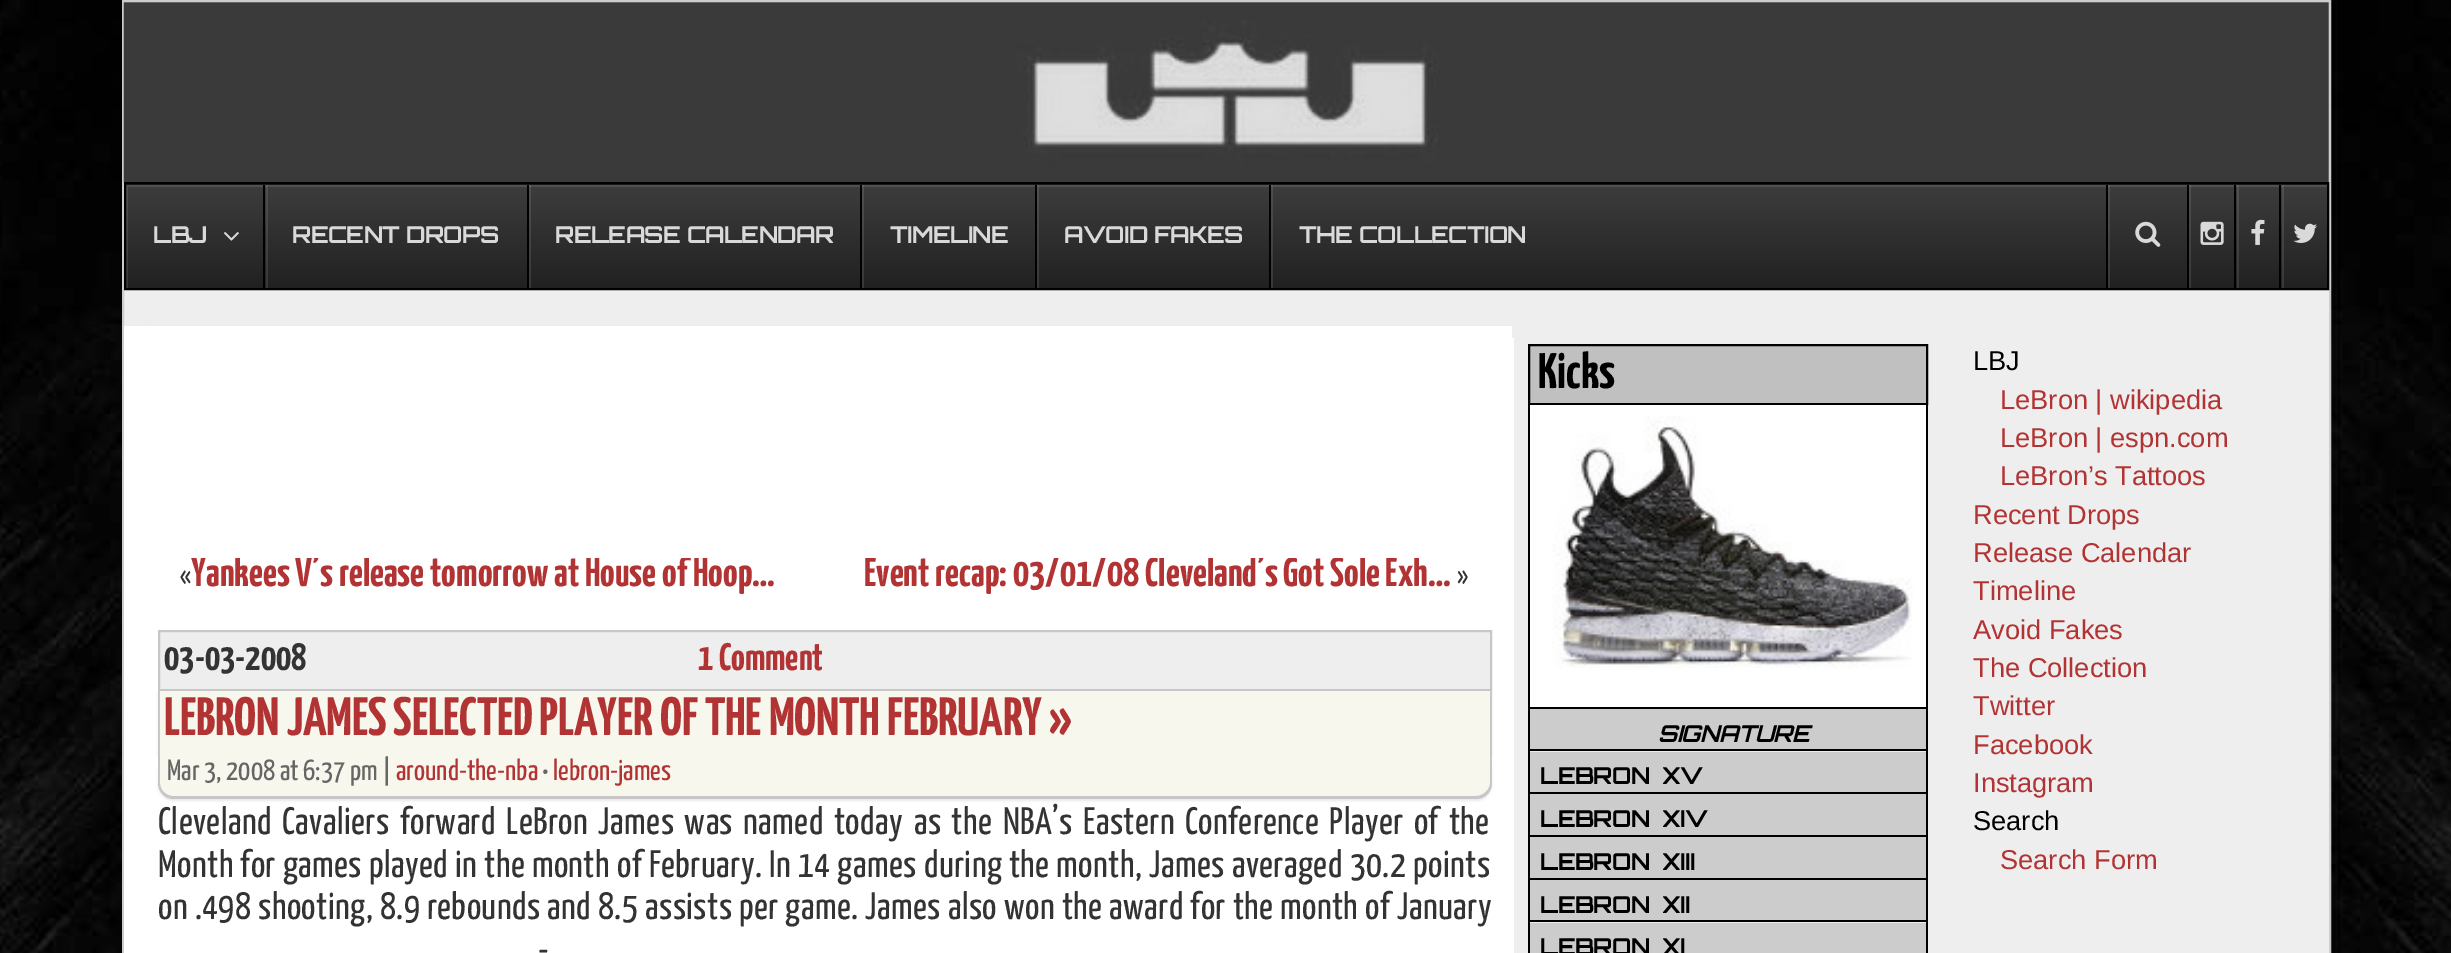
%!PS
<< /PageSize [2451 953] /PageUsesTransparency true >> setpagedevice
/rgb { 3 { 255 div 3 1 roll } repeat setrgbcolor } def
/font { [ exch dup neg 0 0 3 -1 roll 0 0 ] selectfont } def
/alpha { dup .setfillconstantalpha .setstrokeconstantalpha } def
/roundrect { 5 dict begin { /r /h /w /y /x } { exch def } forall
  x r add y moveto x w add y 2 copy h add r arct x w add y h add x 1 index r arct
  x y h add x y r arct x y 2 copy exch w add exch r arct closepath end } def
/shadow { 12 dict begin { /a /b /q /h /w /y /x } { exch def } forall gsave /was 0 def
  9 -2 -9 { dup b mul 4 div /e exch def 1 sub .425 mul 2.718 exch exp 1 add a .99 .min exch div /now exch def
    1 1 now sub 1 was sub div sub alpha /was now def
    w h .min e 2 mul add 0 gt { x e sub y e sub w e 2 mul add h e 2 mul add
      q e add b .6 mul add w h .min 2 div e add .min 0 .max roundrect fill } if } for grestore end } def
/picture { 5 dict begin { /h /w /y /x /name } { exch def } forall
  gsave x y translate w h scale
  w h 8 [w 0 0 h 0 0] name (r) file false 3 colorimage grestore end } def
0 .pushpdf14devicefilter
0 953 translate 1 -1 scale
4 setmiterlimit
255 255 255 rgb
0 0 2451 953 rectfill
(img/1.rgb) 0 0 2451 953 picture
238 238 238 rgb
124 2 2205 324 rectfill
204 204 204 rgb
2 setlinewidth
123 1 2207 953 rectstroke
(img/2.rgb) 123 2 2206 181 picture
gsave 124 184 moveto 2329 184 lineto 2329 185 lineto 124 185 lineto closepath clip newpath
<< /ShadingType 2 /ColorSpace /DeviceRGB /Coords [1226 81 1226 185] /Extend [true true] /Function << /FunctionType 2 /Domain [0 1] /C0 [0.239 0.239 0.239] /C1 [0.129 0.129 0.129] /N 1 >> >> shfill grestore
gsave 126 185 moveto 2327 185 lineto 2327 288 lineto 126 288 lineto closepath clip newpath
<< /ShadingType 2 /ColorSpace /DeviceRGB /Coords [1226 184 1226 288] /Extend [true true] /Function << /FunctionType 2 /Domain [0 1] /C0 [0.239 0.239 0.239] /C1 [0.129 0.129 0.129] /N 1 >> >> shfill grestore
gsave
126 185 2201 103 rectclip
0.1 alpha
255 255 255 rgb
-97 -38 moveto 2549 -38 lineto 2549 511 lineto -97 511 lineto closepath 128 187 moveto 2329 187 lineto 2329 290 lineto 128 290 lineto closepath eofill
grestore
0 0 0 rgb
125 183 2203 106 rectstroke
(img/3.rgb) 224 232 15 9 picture
0.1 alpha
[
  [266 185 2 103 255 255 255]
] { aload pop rgb rectfill } forall
1 alpha
[
  [263 185 2 103 0 0 0]
] { aload pop rgb rectfill } forall
0.1 alpha
[
  [529 185 2 103 255 255 255]
] { aload pop rgb rectfill } forall
1 alpha
[
  [527 185 2 103 0 0 0]
] { aload pop rgb rectfill } forall
0.1 alpha
[
  [862 185 2 103 255 255 255]
] { aload pop rgb rectfill } forall
1 alpha
[
  [860 185 2 103 0 0 0]
] { aload pop rgb rectfill } forall
0.1 alpha
[
  [1037 185 2 103 255 255 255]
] { aload pop rgb rectfill } forall
1 alpha
[
  [1035 185 2 103 0 0 0]
] { aload pop rgb rectfill } forall
0.1 alpha
[
  [1271 185 2 103 255 255 255]
] { aload pop rgb rectfill } forall
1 alpha
[
  [1269 185 2 103 0 0 0]
] { aload pop rgb rectfill } forall
0.1 alpha
[
  [2108 185 2 103 255 255 255]
] { aload pop rgb rectfill } forall
1 alpha
[
  [2106 185 2 103 0 0 0]
] { aload pop rgb rectfill } forall
(img/4.rgb) 2135 221 26 26 picture
0.1 alpha
255 255 255 rgb
2189 185 2 103 rectfill
1 alpha
0 0 0 rgb
2187 185 2 103 rectfill
(img/5.rgb) 2200 221 24 24 picture
0.1 alpha
255 255 255 rgb
2237 185 2 103 rectfill
1 alpha
0 0 0 rgb
2234 185 2 103 rectfill
(img/6.rgb) 2251 219 14 26 picture
0.1 alpha
255 255 255 rgb
2282 185 2 103 rectfill
1 alpha
0 0 0 rgb
2279 185 2 103 rectfill
(img/7.rgb) 2293 223 24 20 picture
[
  [124 326 21 12 255 255 255]
  [1512 326 817 627 238 238 238]
  [124 338 1390 615 255 255 255]
] { aload pop rgb rectfill } forall
238 238 238 rgb
159 631 moveto 1491 631 lineto 1491 690 lineto 159 690 lineto closepath gsave fill grestore
199 199 199 rgb
stroke
50 50 50 rgb
158 693 1334 63 0 1 0.1 shadow
[
  [160 691 1330 63 247 247 237]
  [1490 691 2 63 199 199 199]
  [158 691 2 63 199 199 199]
] { aload pop rgb rectfill } forall
50 50 50 rgb
158 756 1334 45 16 1 0.1 shadow
247 247 237 rgb
158 754 moveto 1492 754 lineto 1492 783 lineto 1492 792 1485 799 1476 799 curveto 174 799 lineto 165 799 158 792 158 783 curveto closepath fill
199 199 199 rgb
158 754 moveto 1492 754 lineto 1492 783 lineto 1492 792 1485 799 1476 799 curveto 173 799 lineto 165 799 158 792 158 783 curveto closepath 160 754 moveto 1490 754 lineto 1490 783 lineto 1490 790 1483 796 1476 796 curveto 173 796 lineto 166 796 160 790 160 783 curveto closepath eofill
192 192 192 rgb
1529 345 moveto 1927 345 lineto 1927 404 lineto 1529 404 lineto closepath gsave fill grestore
0 0 0 rgb
stroke
[
  [1530 405 396 302 255 255 255]
  [1926 405 2 548 0 0 0]
  [1528 707 400 2 0 0 0]
  [1528 405 2 304 0 0 0]
] { aload pop rgb rectfill } forall
(img/8.rgb) 1552 416 361 252 picture
[
  [1530 709 396 40 204 204 204]
  [1528 749 400 2 0 0 0]
  [1528 709 2 43 0 0 0]
  [1530 752 396 40 204 204 204]
  [1528 792 400 2 0 0 0]
  [1528 752 2 42 0 0 0]
  [1530 794 396 41 204 204 204]
  [1528 835 400 2 0 0 0]
  [1528 794 2 43 0 0 0]
  [1530 837 396 41 204 204 204]
  [1528 878 400 2 0 0 0]
  [1528 837 2 43 0 0 0]
  [1530 880 396 40 204 204 204]
  [1528 920 400 2 0 0 0]
  [1528 880 2 73 0 0 0]
  [1530 923 396 30 204 204 204]
] { aload pop rgb rectfill } forall
/Orbitron-Bold 22.5 font
217 217 217 rgb
[
  [(LBJ) 153 243]
  [(RECENT DROPS) 292 243]
  [(RELEASE CALENDAR) 555 243]
  [(TIMELINE) 890 243]
  [(AVOID FAKES) 1064 243]
  [(THE COLLECTION) 1299 243]
] { aload pop moveto show } forall
/YanoneKaffeesatz-Regular 27.25 font
51 51 51 rgb
180 584 moveto («) show
gsave
191 558 592 38 rectclip
/YanoneKaffeesatz-Bold 40.5 font
178 51 51 rgb
191 586 moveto (Yankees V’s release tomorrow at House of Hoop…) show
grestore
gsave
864 558 594 38 rectclip
/YanoneKaffeesatz-Bold 40.5 font
178 51 51 rgb
864 586 moveto (Event recap: 03/01/08 Cleveland’s Got Sole Exh…) show
grestore
1457 584 moveto (») show
/YanoneKaffeesatz-Bold 38.25 font
164 670 moveto (03-03-2008) show
178 51 51 rgb
698 670 moveto (1 Comment) show
/YanoneKaffeesatz-Bold 54 font
164 735 moveto -0.23 0 (LEBRON JAMES SELECTED PLAYER OF THE MONTH FEBRUARY ») ashow
/YanoneKaffeesatz-Regular 29.25 font
102 102 102 rgb
167 780 moveto (Mar 3, 2008 at 6:37 pm |) show
178 51 51 rgb
396 780 moveto (around-the-nba) show
102 102 102 rgb
542 780 moveto (•) show
178 51 51 rgb
553 780 moveto (lebron-james) show
/YanoneKaffeesatz-Regular 38.25 font
51 51 51 rgb
158 834 moveto 3.75 0 32 0.45 0 (Cleveland Cavaliers forward LeBron James was named today as the NBA’s Eastern Conference Player of the) awidthshow
158 877 moveto 0.3 0 32 0.45 0 (Month for games played in the month of February. In 14 games during the month, James averaged 30.2 points) awidthshow
158 919 moveto 0.2 0 32 0.45 0 (on .498 shooting, 8.9 rebounds and 8.5 assists per game. James also won the award for the month of January) awidthshow
538 962 moveto 1 0 32 0.45 0 (-) awidthshow
/YanoneKaffeesatz-Bold 50 font
0 0 0 rgb
1538 388 moveto (Kicks) show
/Orbitron-BoldItalic 22.5 font
1658 742 moveto (SIGNATURE) show
/Orbitron-Bold 22.5 font
1540 784 moveto 6 0 32 (LEBRON XV) widthshow
1540 827 moveto 6 0 32 (LEBRON XIV) widthshow
1540 870 moveto 6 0 32 (LEBRON XIII) widthshow
1540 913 moveto 6 0 32 (LEBRON XII) widthshow
1540 955 moveto 6 0 32 (LEBRON XI) widthshow
/LiberationSans-Regular 27.25 font
1973 370 moveto (LBJ) show
178 51 51 rgb
[
  [(LeBron | wikipedia) 2000 409]
  [(LeBron | espn.com) 2000 447]
  [(LeBron’s Tattoos) 2000 485]
  [(Recent Drops) 1973 524]
  [(Release Calendar) 1973 562]
  [(Timeline) 1973 600]
  [(Avoid Fakes) 1973 639]
  [(The Collection) 1973 677]
  [(Twitter) 1973 715]
  [(Facebook) 1973 754]
  [(Instagram) 1973 792]
] { aload pop moveto show } forall
0 0 0 rgb
1973 830 moveto (Search) show
178 51 51 rgb
2000 869 moveto (Search Form) show
.poppdf14devicefilter showpage
